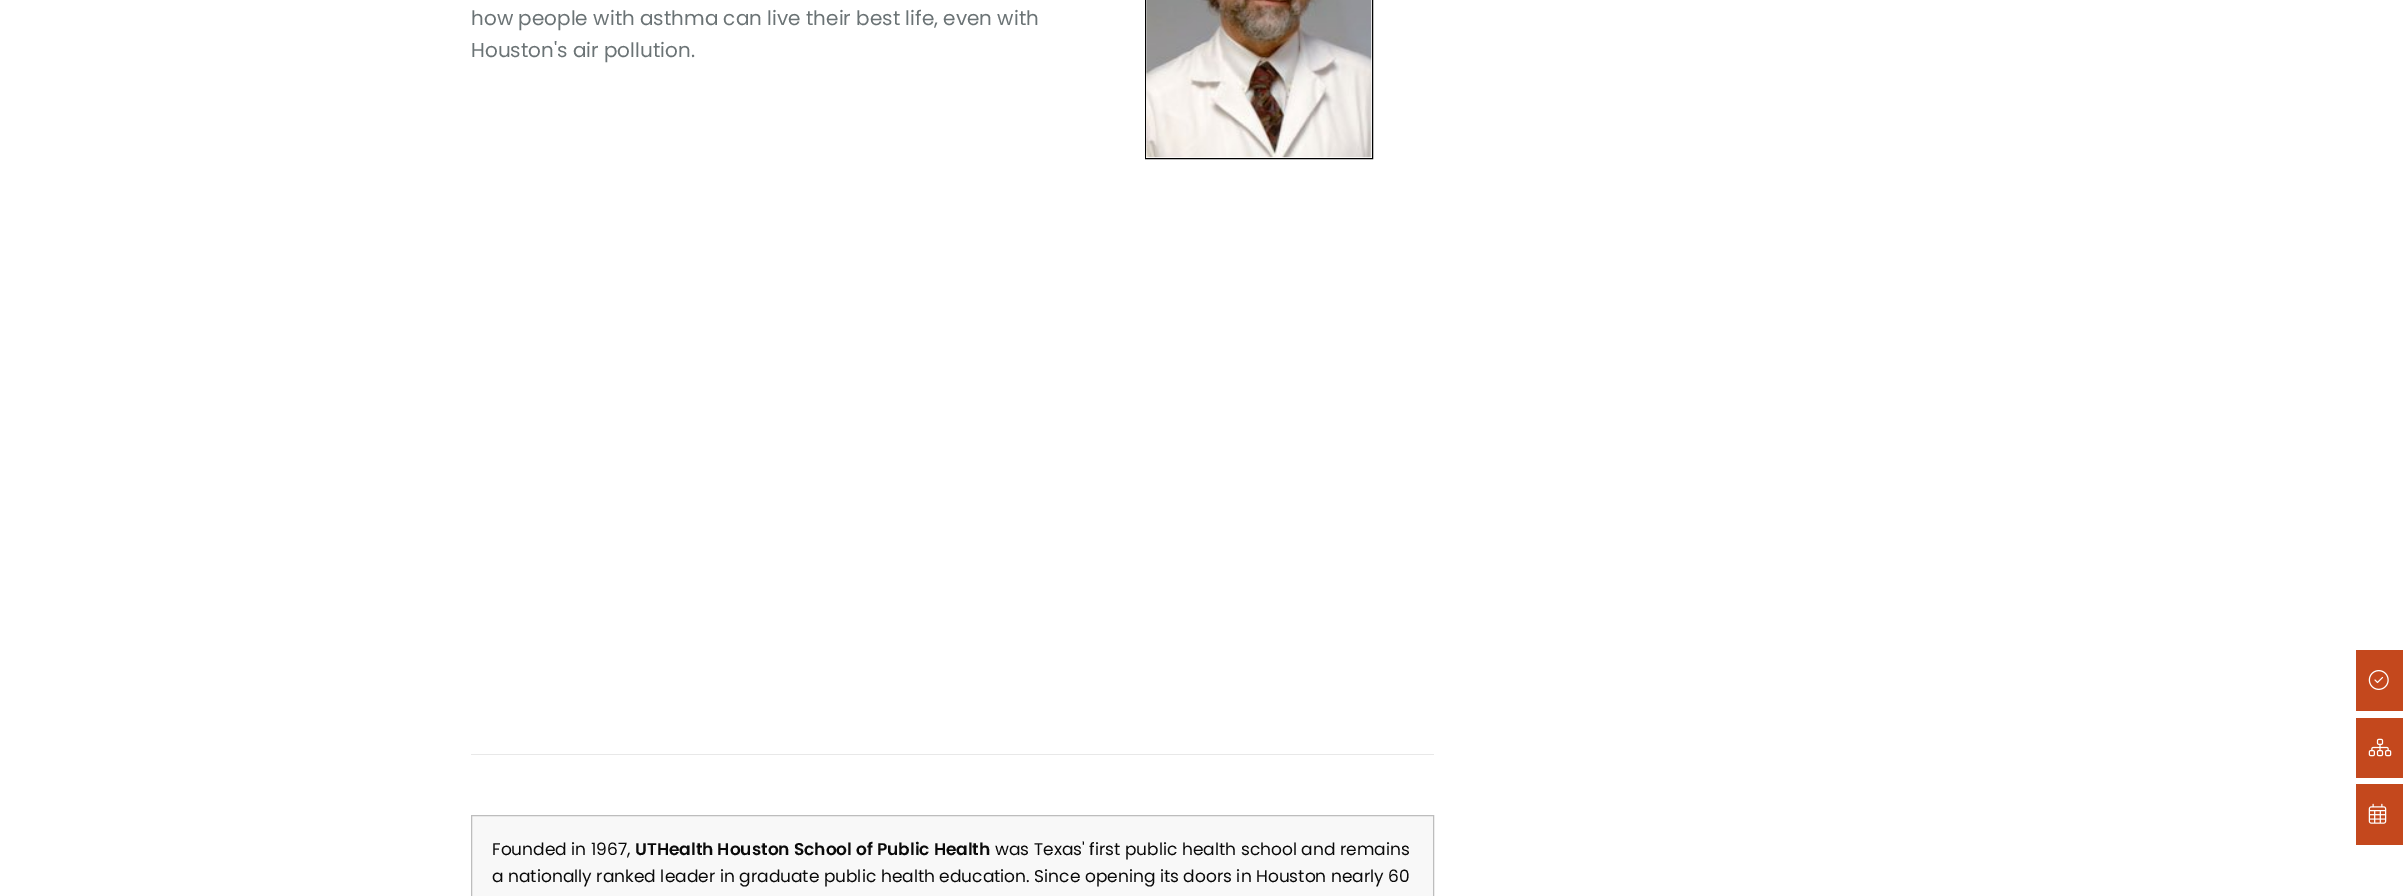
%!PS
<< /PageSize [2403 896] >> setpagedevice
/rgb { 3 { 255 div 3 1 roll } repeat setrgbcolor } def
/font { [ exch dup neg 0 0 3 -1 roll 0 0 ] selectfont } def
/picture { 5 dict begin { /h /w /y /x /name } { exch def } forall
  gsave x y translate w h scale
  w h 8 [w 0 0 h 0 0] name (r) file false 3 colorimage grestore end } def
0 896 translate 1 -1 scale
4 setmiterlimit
255 255 255 rgb
0 0 2403 896 rectfill
0 0 0 rgb
1145.5 -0.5 227 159 rectstroke
(img/1.rgb) 1146 0 226 158 picture
232 232 232 rgb
471 754 963 1 rectfill
248 248 248 rgb
471.5 815.5 moveto 1433.5 815.5 lineto 1433.5 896.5 lineto 471.5 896.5 lineto closepath gsave fill grestore
189 189 189 rgb
stroke
196 72 29 rgb
2356 650 47 61 rectfill
(img/2.rgb) 2368 670 21 20 picture
2356 718 47 60 rectfill
(img/3.rgb) 2368 738 24 19 picture
2356 784 47 61 rectfill
(img/4.rgb) 2368 803 19 21 picture
/Poppins-Regular 20 font
107 115 117 rgb
471 25 moveto (how people with asthma can live their best life, even with) show
471 57 moveto (Houston's air pollution.) show
/Poppins-Regular 17 font
10 10 10 rgb
492 855 moveto (Founded in 1967,) show
/Poppins-SemiBold 17 font
635 855 moveto (UTHealth Houston School of Public Health) show
/Poppins-Regular 17 font
995 855 moveto (was Texas' first public health school and remains) show
492 882 moveto (a nationally ranked leader in graduate public health education. Since opening its doors in Houston nearly 60) show
showpage
